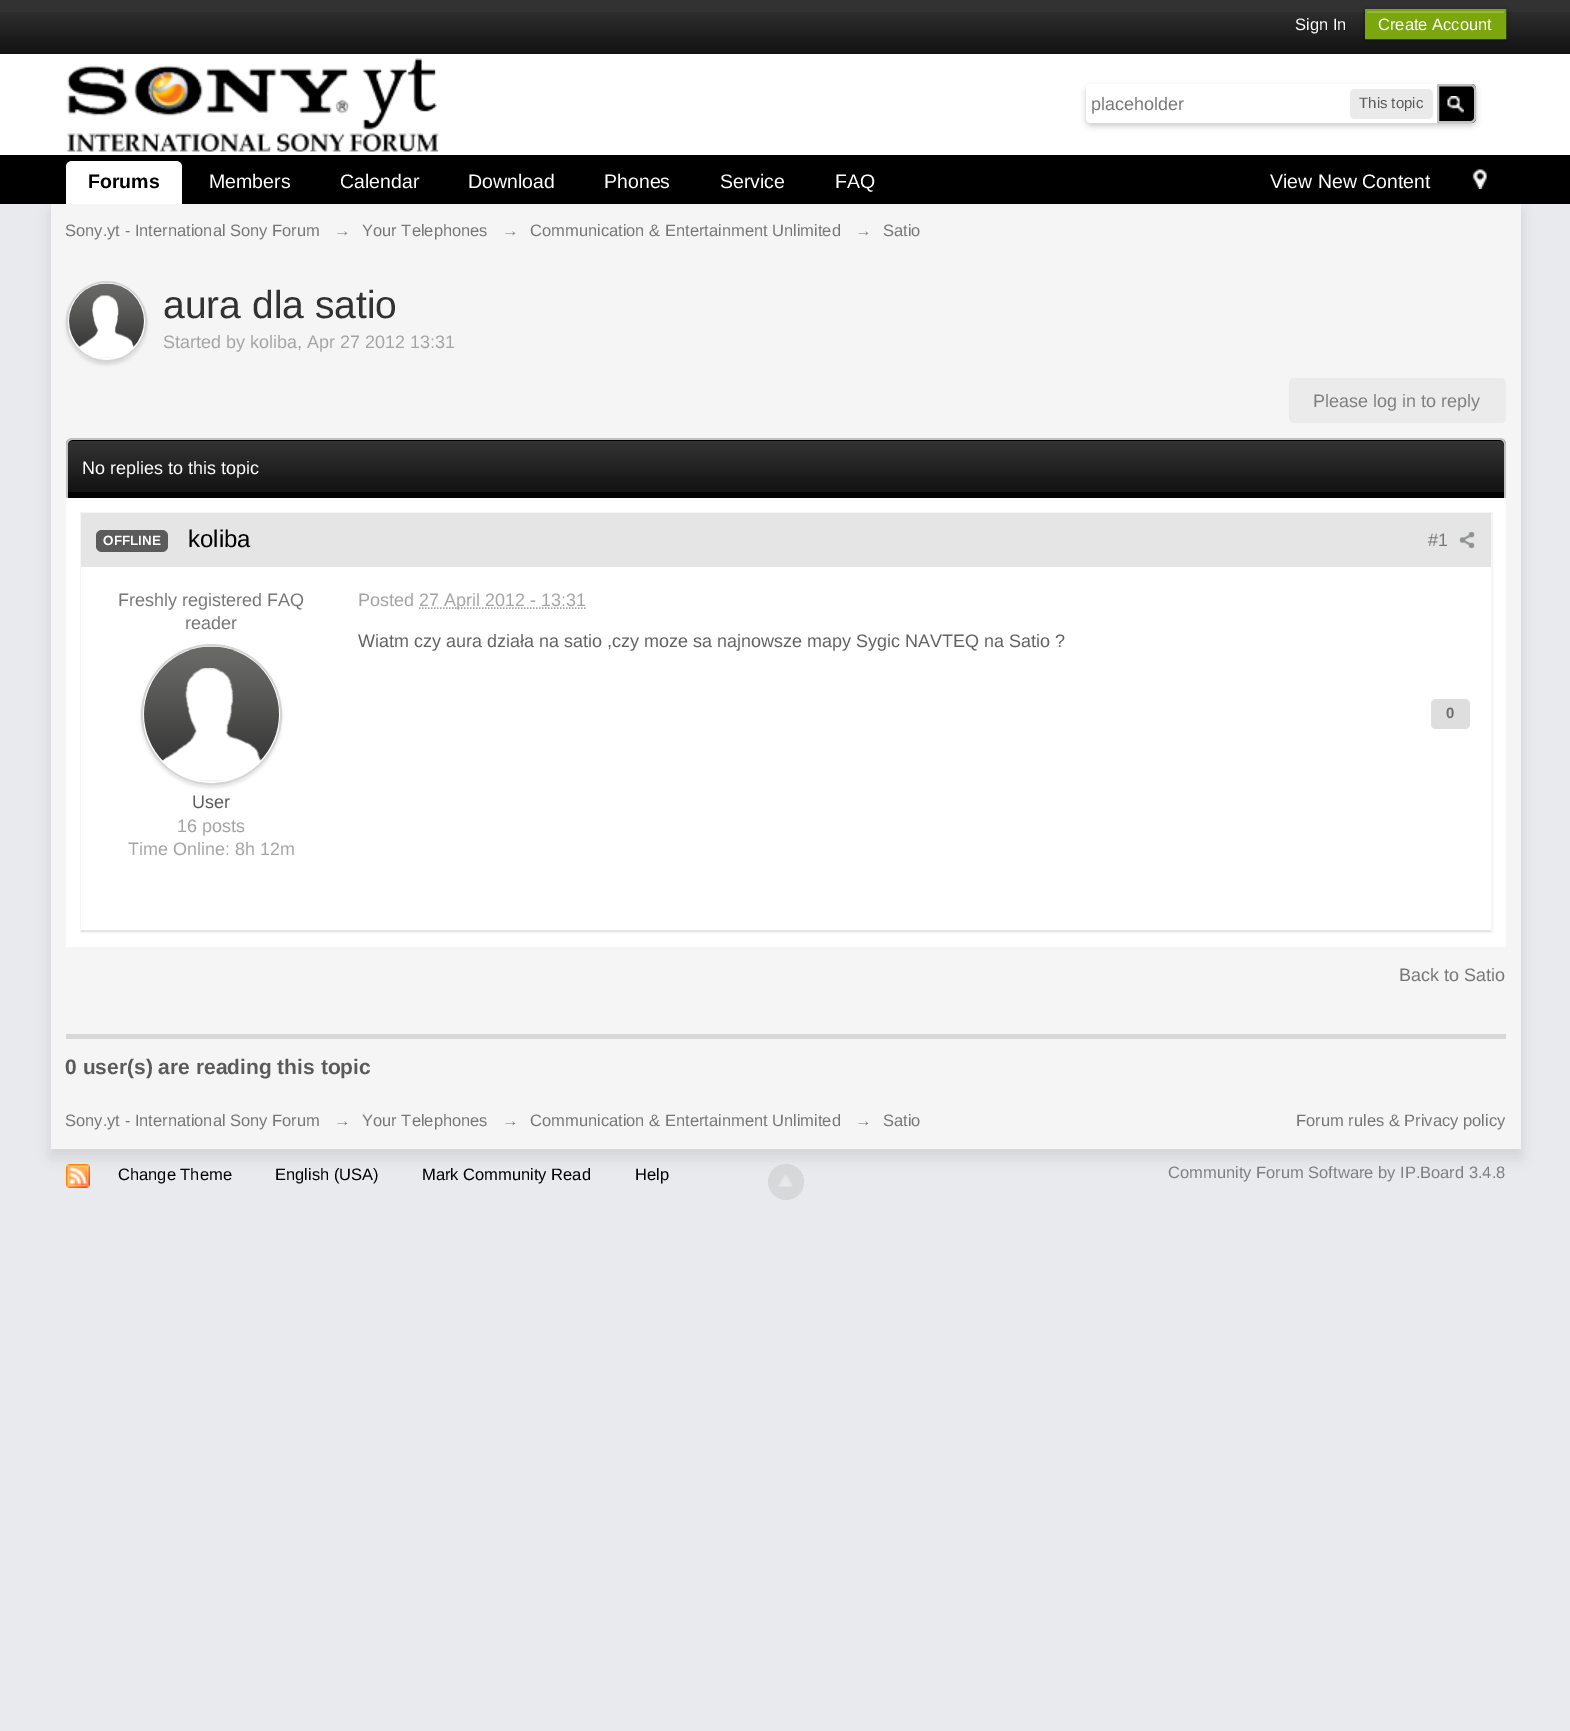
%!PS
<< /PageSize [1570 1731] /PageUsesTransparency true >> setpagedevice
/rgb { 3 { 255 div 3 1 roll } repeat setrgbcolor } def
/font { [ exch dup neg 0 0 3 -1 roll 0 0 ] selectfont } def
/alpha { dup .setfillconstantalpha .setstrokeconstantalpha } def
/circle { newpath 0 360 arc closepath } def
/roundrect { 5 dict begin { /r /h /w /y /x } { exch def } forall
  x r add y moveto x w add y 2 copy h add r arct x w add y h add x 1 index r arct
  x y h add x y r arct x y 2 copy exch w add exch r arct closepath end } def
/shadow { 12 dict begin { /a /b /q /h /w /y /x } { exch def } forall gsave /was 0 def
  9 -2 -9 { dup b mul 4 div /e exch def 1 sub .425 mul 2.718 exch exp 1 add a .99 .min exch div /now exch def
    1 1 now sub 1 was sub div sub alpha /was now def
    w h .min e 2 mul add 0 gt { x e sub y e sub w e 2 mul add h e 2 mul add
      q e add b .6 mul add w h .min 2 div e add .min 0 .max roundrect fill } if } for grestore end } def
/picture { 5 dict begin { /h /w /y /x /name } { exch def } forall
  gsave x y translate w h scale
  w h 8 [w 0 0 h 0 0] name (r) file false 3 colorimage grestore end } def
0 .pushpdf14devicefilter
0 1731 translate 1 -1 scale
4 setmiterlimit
233 234 237 rgb
0 0 1570 1731 rectfill
50 50 50 rgb
0 0 1570 12 rectfill
(img/1.rgb) 0 12 1570 42 picture
0 0 0 rgb
1365 11 141 30 0 3 0.4 shadow
123 166 13 rgb
1367 13 137 24 rectfill
149 184 61 rgb
1367 11 138 2 rectfill
123 166 13 rgb
2 setlinewidth
1366 10 139 28 rectstroke
255 255 255 rgb
0 54 1570 101 rectfill
(img/2.rgb) 67 58 372 94 picture
0 0 0 rgb
1086 87 390 39 6 3 0.2 shadow
255 255 255 rgb
1091 84 moveto 1470 84 lineto 1473.5 84 1476 86.5 1476 90 curveto 1476 117 lineto 1476 120.5 1473.5 123 1470 123 curveto 1091 123 lineto 1088 123 1086 121 1086 118 curveto 1086 89 lineto 1086 86 1088 84 1091 84 curveto closepath fill
234 234 234 rgb
1350 89 83 30 5 roundrect fill
0 0 0 rgb
1437 84 moveto 1471 84 lineto 1474 84 1476 86 1476 89 curveto 1476 118 lineto 1476 121 1474 123 1471 123 curveto 1437 123 lineto closepath fill
(img/3.rgb) 1447 96 17 17 picture
51 51 51 rgb
1439 86 moveto 1439 87 lineto 1466.5 87 lineto 1469.5 87 1474 85.5 1474 90 curveto 1474 121.5 lineto 1474.5 121 1475 120 1475 119 curveto 1475 89 lineto 1475 87.5 1473.5 86 1472 86 curveto closepath fill
192 192 192 rgb
1438 85 moveto 1471 85 lineto 1473 85 1475 87 1475 89 curveto 1475 118 lineto 1475 120 1473 122 1471 122 curveto 1438 122 lineto closepath stroke
0 0 0 rgb
0 155 1570 49 rectfill
51 212 1470 945 0 7 0.1 shadow
255 255 255 rgb
72 161 moveto 176 161 lineto 179.5 161 182 163.5 182 167 curveto 182 204 lineto 66 204 lineto 66 167 lineto 66 163.5 68.5 161 72 161 curveto closepath fill
(img/4.rgb) 1472 169 15 20 picture
245 245 245 rgb
51 204 1470 945 rectfill
0 0 0 rgb
66 284 81 81 40.5 1.5 0.1 shadow
255 255 255 rgb
106.5 321.5 39.5 circle gsave fill grestore
213 213 213 rgb
stroke
(img/5.rgb) 69 283 75 75 picture
235 235 235 rgb
1289 378 217 45 5 roundrect fill
0 0 0 rgb
73 440 moveto 1500 440 lineto 1503 440 1505 442 1505 445 curveto 1505 498 lineto 68 498 lineto 68 445 lineto 68 442 70 440 73 440 curveto closepath fill
(img/6.rgb) 66 439 1440 53 picture
72 441 moveto 1500 441 lineto 1502 441 1504 443 1504 446 curveto 1504 498 lineto 1505 498 lineto 1505 445 lineto 1505 442 1503 440 1500 440 curveto 73 440 lineto 70 440 68 442 68 445 curveto 68 446 lineto 68 443 70 441 72 441 curveto closepath fill
192 192 192 rgb
72 438 moveto 1500 438 lineto 1503 438 1506 441 1506 444 curveto 1506 498 lineto 66 498 lineto 66 444 lineto 66 441 69 438 72 438 curveto closepath 72 440 moveto 1500 440 lineto 1502 440 1504 442 1504 444 curveto 1504 498 lineto 68 498 lineto 68 444 lineto 68 442 70 440 72 440 curveto closepath eofill
255 255 255 rgb
66 498 1440 449 rectfill
245 245 245 rgb
81 513 1411 419 rectstroke
[
  [81 567 1 363 255 255 255]
  [81 930 1410 2 229 229 229]
  [81 513 1410 54 229 229 229]
] { aload pop rgb rectfill } forall
91 91 91 rgb
96 530 72 22 6 roundrect fill
(img/7.rgb) 1459 532 16 17 picture
0 0 0 rgb
141 647 141 141 70.5 1.5 0.1 shadow
255 255 255 rgb
211.5 714.5 69.5 circle gsave fill grestore
213 213 213 rgb
stroke
(img/8.rgb) 144 646 135 136 picture
164 164 164 rgb
1.5 setlinewidth
[1.5 1.5] 0 setdash
419 608 moveto 586 608 lineto stroke
222 222 222 rgb
1431 699 39 30 5 roundrect fill
216 216 216 rgb
66 1034 1440 5 rectfill
(img/9.rgb) 66 1164 24 24 picture
0.4 alpha
189 189 189 rgb
786 1182 18 circle fill
1 alpha
(img/10.rgb) 778 1174 15 13 picture
/LiberationSans-Regular 16.5 font
255 255 255 rgb
1295 30 moveto (Sign In) show
1378 30 moveto (Create Account) show
/LiberationSans-Regular 18 font
119 119 119 rgb
1091 110 moveto (placeholder) show
/LiberationSans-Regular 15 font
90 90 90 rgb
1359 108 moveto (This topic) show
/LiberationSans-Bold 19.5 font
0 0 0 rgb
88 188 moveto (Forums) show
/LiberationSans-Regular 19.5 font
255 255 255 rgb
[
  [(Members) 209 188]
  [(Calendar) 340 188]
  [(Download) 468 188]
  [(Phones) 604 188]
  [(Service) 720 188]
  [(FAQ) 835 188]
  [(View New Content) 1270 188]
] { aload pop moveto show } forall
/LiberationSans-Regular 16.5 font
119 119 119 rgb
[
  [(Sony.yt - International Sony Forum) 65 236]
  [(→) 334 236]
  [(Your Telephones) 362 236]
  [(→) 502 236]
  [(Communication & Entertainment Unlimited) 530 236]
  [(→) 855 236]
  [(Satio) 883 236]
] { aload pop moveto show } forall
/LiberationSans-Regular 39 font
50 50 50 rgb
163 318 moveto (aura dla satio) show
/LiberationSans-Regular 18 font
164 164 164 rgb
163 348 moveto (Started by koliba, Apr 27 2012 13:31) show
127 127 127 rgb
1313 407 moveto (Please log in to reply) show
255 255 255 rgb
82 474 moveto (No replies to this topic) show
/LiberationSans-Bold 13.5 font
103 545 moveto (OFFLINE) show
/LiberationSans-Regular 24 font
0 0 0 rgb
188 547 moveto (koliba) show
/LiberationSans-Regular 18 font
119 119 119 rgb
[
  [(#1) 1428 546]
  [(Freshly registered FAQ) 118 606]
  [(reader) 185 629]
] { aload pop moveto show } forall
90 90 90 rgb
192 808 moveto (User) show
164 164 164 rgb
[
  [(16 posts) 177 832]
  [(Time Online: 8h 12m) 128 855]
  [(Posted) 358 606]
  [(27 April 2012 - 13:31) 419 606]
] { aload pop moveto show } forall
98 98 98 rgb
358 647 moveto (Wiatm czy aura działa na satio ,czy moze sa najnowsze mapy Sygic NAVTEQ na Satio ?) show
/LiberationSans-Bold 15 font
110 110 110 rgb
1446 718 moveto (0) show
/LiberationSans-Regular 18 font
119 119 119 rgb
1399 981 moveto (Back to Satio) show
/LiberationSans-Bold 21 font
90 90 90 rgb
65 1074 moveto (0 user\(s\) are reading this topic) show
/LiberationSans-Regular 16.5 font
119 119 119 rgb
[
  [(Sony.yt - International Sony Forum) 65 1126]
  [(→) 334 1126]
  [(Your Telephones) 362 1126]
  [(→) 502 1126]
  [(Communication & Entertainment Unlimited) 530 1126]
  [(→) 855 1126]
  [(Satio) 883 1126]
  [(Forum rules & Privacy policy) 1296 1126]
] { aload pop moveto show } forall
0 0 0 rgb
[
  [(Change Theme) 118 1180]
  [(English \(USA\)) 275 1180]
  [(Mark Community Read) 422 1180]
  [(Help) 635 1180]
] { aload pop moveto show } forall
127 127 127 rgb
1168 1178 moveto (Community Forum Software by IP.Board 3.4.8) show
.poppdf14devicefilter showpage
